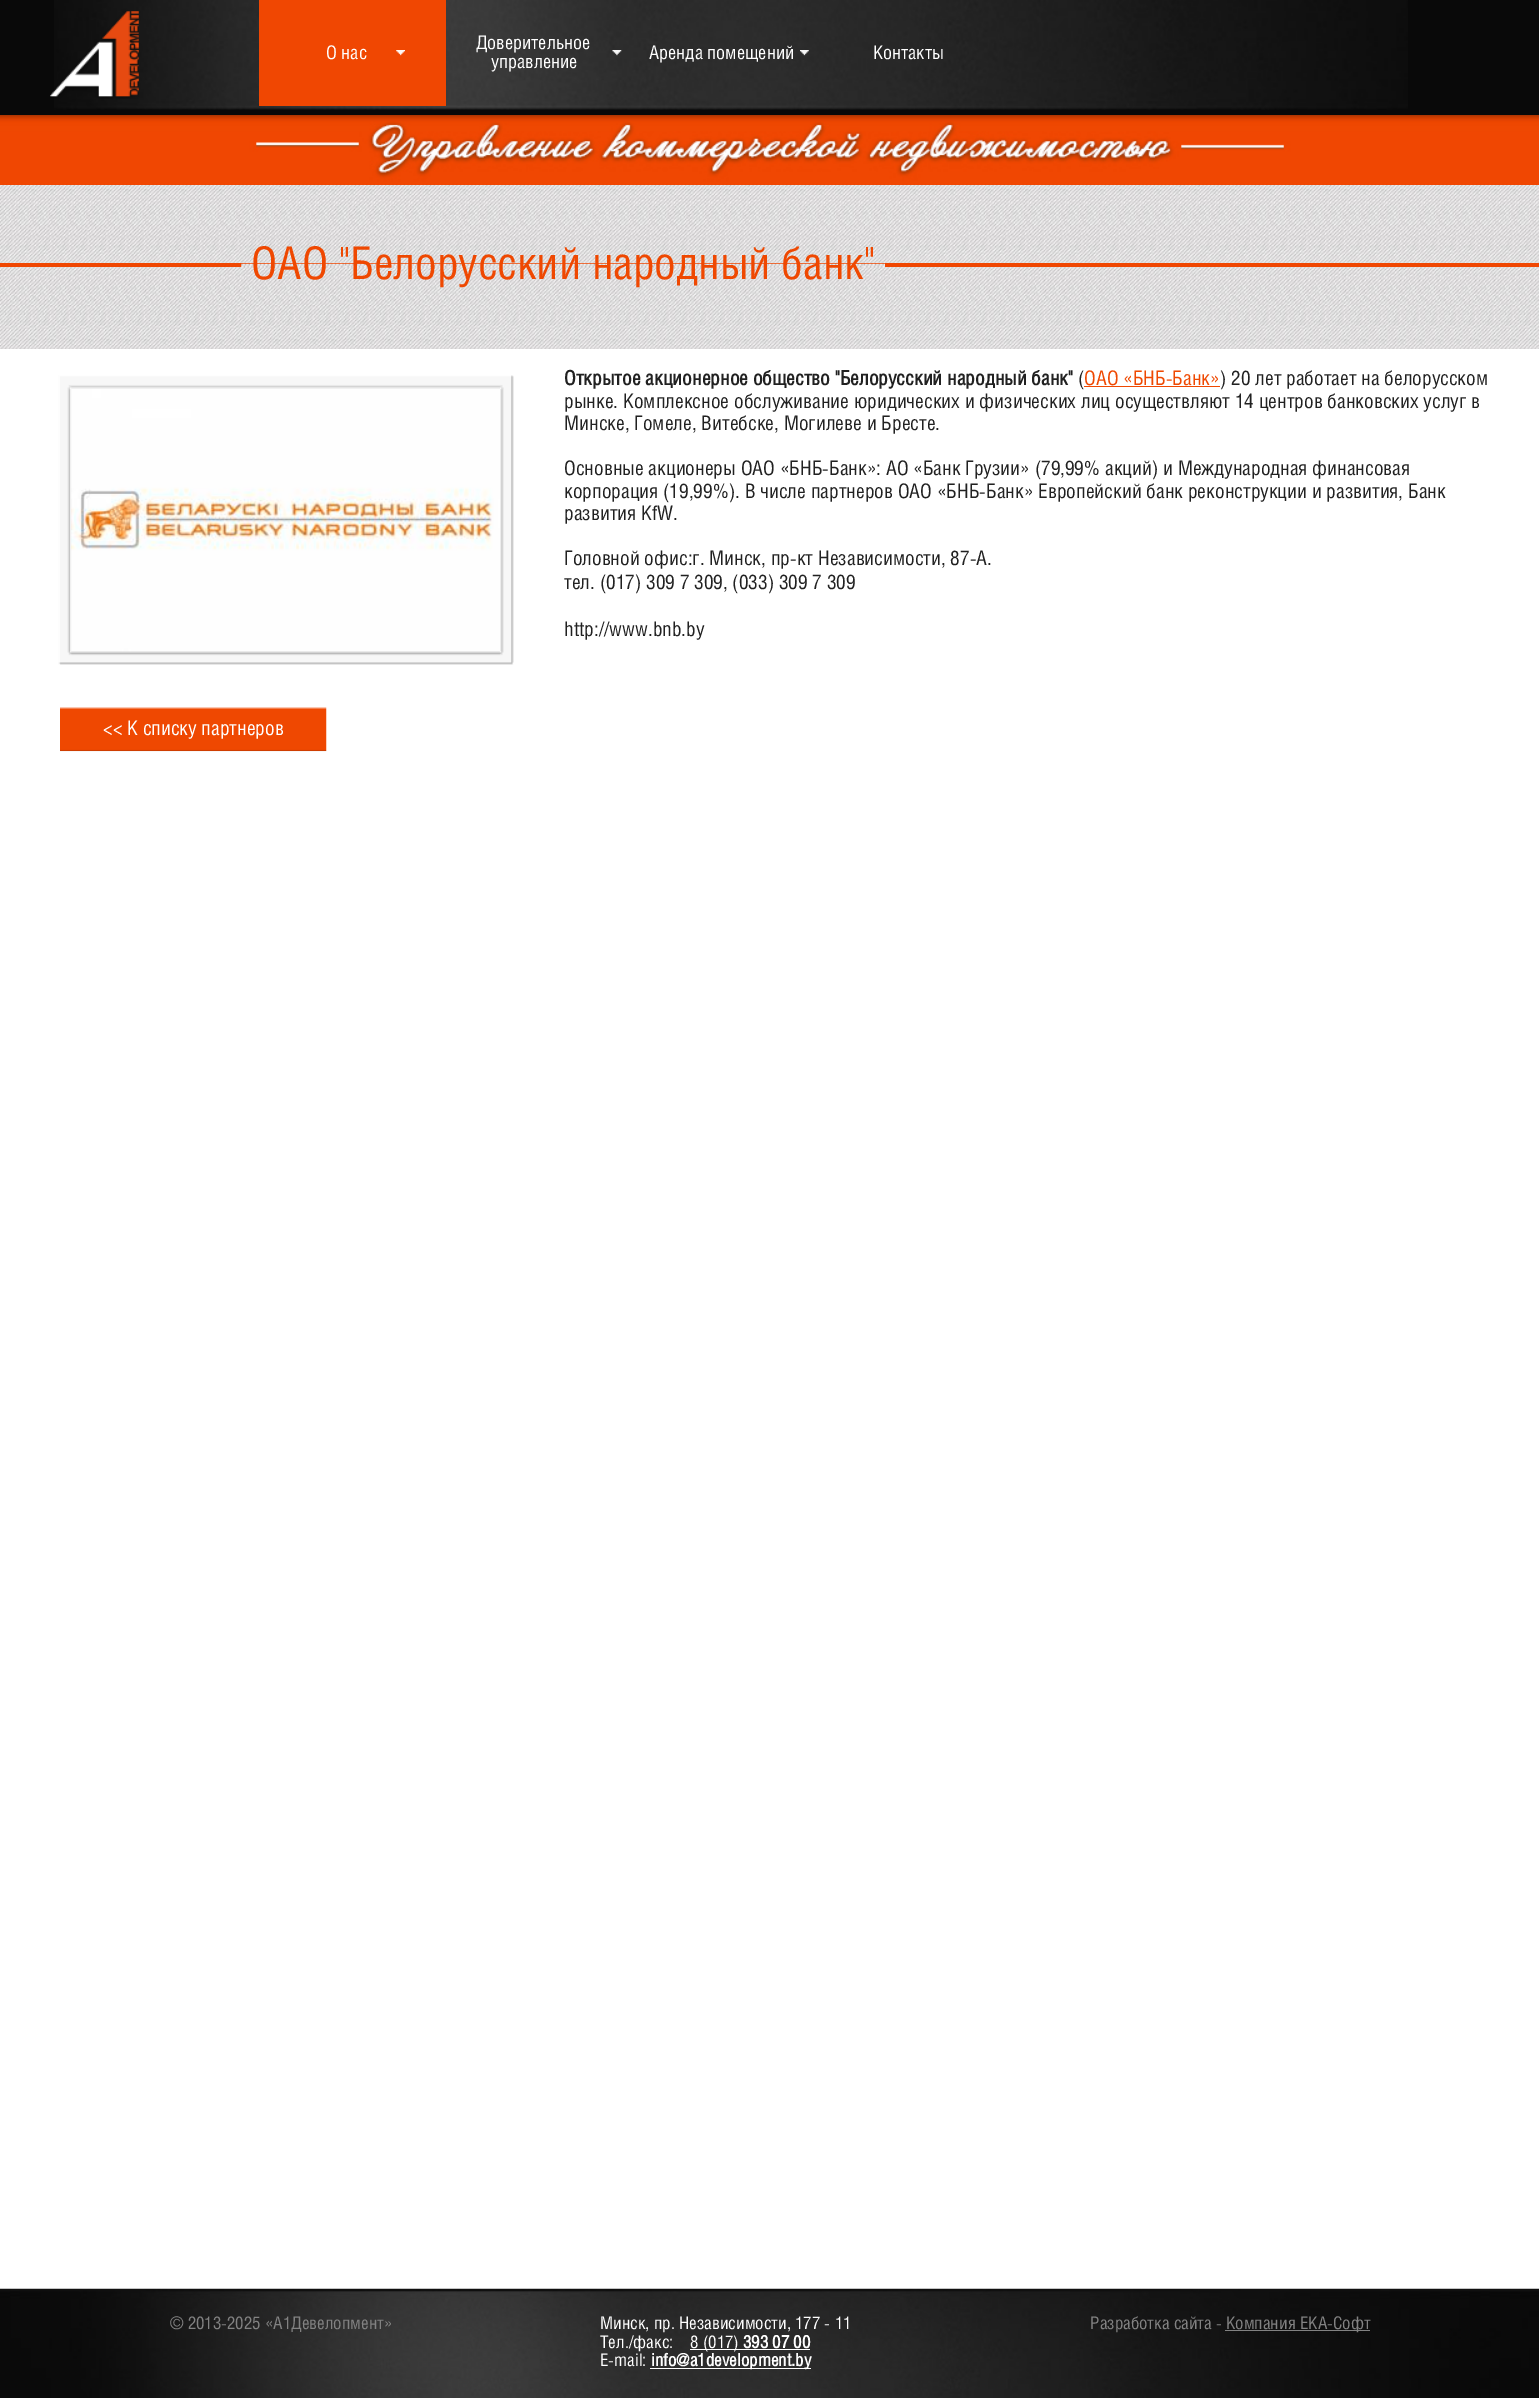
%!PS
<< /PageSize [1539 2398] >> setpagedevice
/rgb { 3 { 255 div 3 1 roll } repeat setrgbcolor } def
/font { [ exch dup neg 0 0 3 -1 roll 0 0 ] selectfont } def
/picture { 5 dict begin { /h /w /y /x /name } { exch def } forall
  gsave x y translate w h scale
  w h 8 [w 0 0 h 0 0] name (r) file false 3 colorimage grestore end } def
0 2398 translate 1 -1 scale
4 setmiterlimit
255 255 255 rgb
0 0 1539 2398 rectfill
(img/1.rgb) 0 185 1539 164 picture
9 9 9 rgb
0 0 1539 115 rectfill
(img/2.rgb) 54 0 1354 110 picture
(img/3.rgb) 50 11 89 88 picture
240 71 2 rgb
259 0 187 106 rectfill
(img/4.rgb) 396 50 9 6 picture
(img/5.rgb) 612 50 10 6 picture
(img/6.rgb) 800 50 9 6 picture
(img/7.rgb) 0 115 1539 70 picture
0 263 1539 4 rectfill
(img/8.rgb) 241 263 644 5 picture
(img/9.rgb) 58 375 456 290 picture
(img/10.rgb) 71 388 429 264 picture
239 72 1 rgb
1084 386 136 1 rectfill
(img/11.rgb) 60 707 267 45 picture
(img/12.rgb) 0 2288 1539 110 picture
[
  [690 2349 120 1 255 255 255]
  [650 2368 161 1 255 255 255]
  [1225 2330 145 1 130 130 130]
] { aload pop rgb rectfill } forall
/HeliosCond-Regular 18.75 font
255 255 255 rgb
[
  [(О нас) 326 59]
  [(Доверительное) 476 49]
  [(управление) 491 68]
  [(Аренда помещений) 649 59]
  [(Контакты) 873 59]
] { aload pop moveto show } forall
/HeliosCond-Regular 45 font
239 72 1 rgb
251 279 moveto (ОАО "Белорусский народный банк") show
/HeliosCond-Bold 20 font
33 33 33 rgb
564 385 moveto (Открытое акционерное общество "Белорусский народный банк") show
/HeliosCond-Regular 20 font
1078 385 moveto (\() show
239 72 1 rgb
1084 385 moveto (ОАО «БНБ-Банк») show
33 33 33 rgb
[
  [(\) 20 лет работает на белорусском) 1220 385]
  [(рынке. Комплексное обслуживание юридических и физических лиц осуществляют 14 центров банковских услуг в) 564 408]
  [(Минске, Гомеле, Витебске, Могилеве и Бресте.) 564 430]
  [(Основные акционеры ОАО «БНБ-Банк»: АО «Банк Грузии» \(79,99% акций\) и Международная финансовая) 564 475]
  [(корпорация \(19,99%\). В числе партнеров ОАО «БНБ-Банк» Европейский банк реконструкции и развития, Банк) 564 498]
  [(развития KfW.) 564 520]
  [(Головной офис:г. Минск, пр-кт Независимости, 87-А.) 564 565]
  [(тел. \(017\) 309 7 309, \(033\) 309 7 309) 564 589]
  [(http://www.bnb.by) 564 636]
] { aload pop moveto show } forall
255 255 255 rgb
103 735 moveto (<< К списку партнеров) show
/HeliosCond-Regular 17.5 font
130 130 130 rgb
170 2329 moveto (© 2013-2025 «А1Девелопмент») show
255 255 255 rgb
[
  [(Минск, пр. Независимости, 177 - 11) 600 2329]
  [(Тел./факс:) 600 2348]
  [(8 \(017\)) 690 2348]
] { aload pop moveto show } forall
/HeliosCond-Bold 17.5 font
743 2348 moveto (393 07 00) show
/HeliosCond-Regular 17.5 font
600 2366 moveto (Е-mail:) show
/HeliosCond-Bold 17.5 font
651 2366 moveto (info@a1development.by) show
/HeliosCond-Regular 17.5 font
130 130 130 rgb
1090 2329 moveto (Разработка сайта -) show
1226 2329 moveto (Компания ЕКА-Софт) show
showpage
